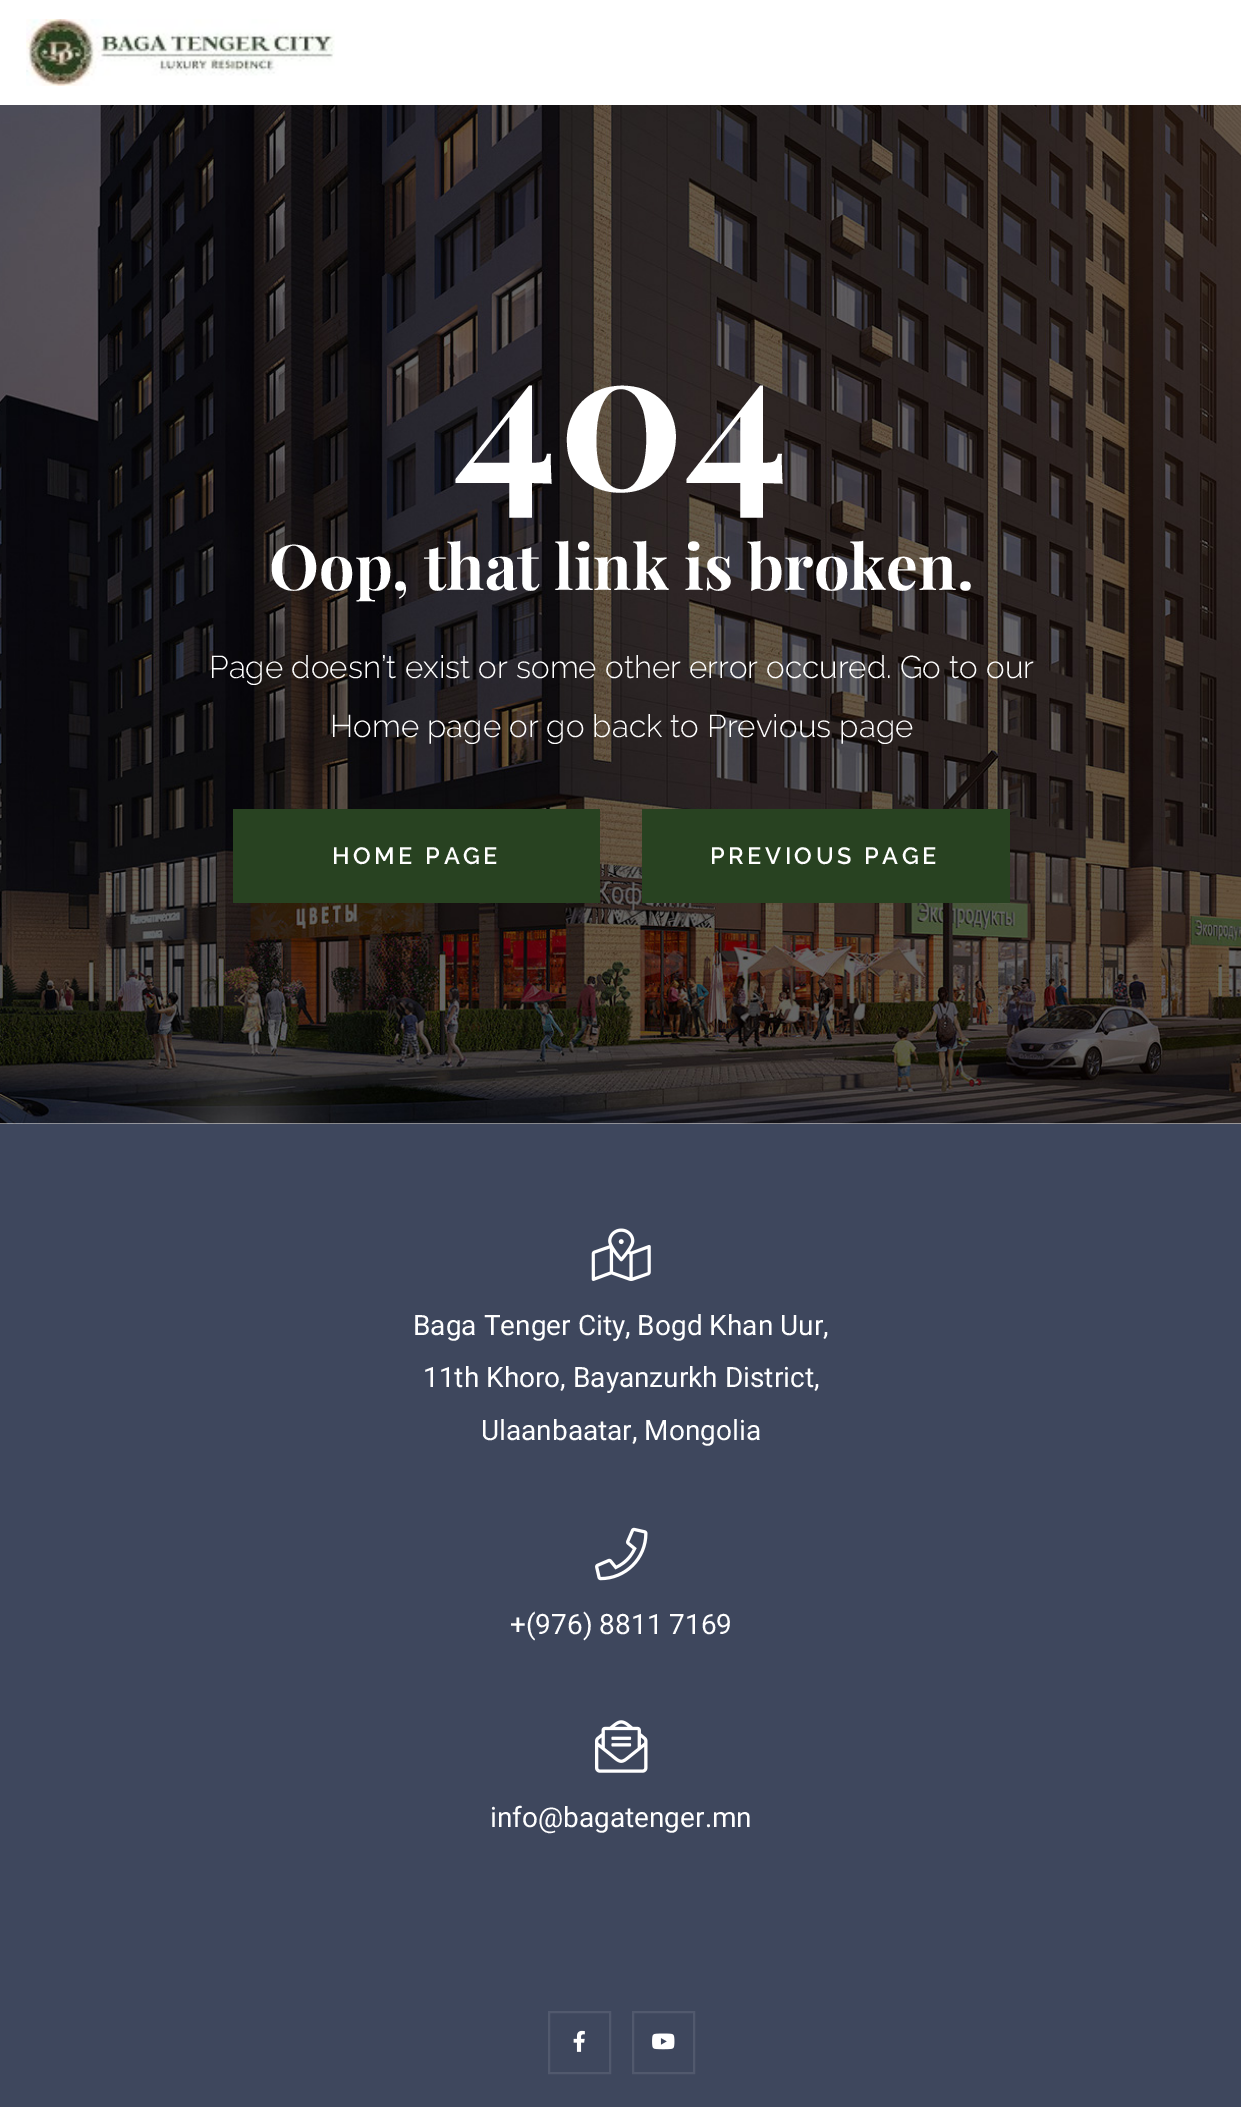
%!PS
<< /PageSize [1241 2107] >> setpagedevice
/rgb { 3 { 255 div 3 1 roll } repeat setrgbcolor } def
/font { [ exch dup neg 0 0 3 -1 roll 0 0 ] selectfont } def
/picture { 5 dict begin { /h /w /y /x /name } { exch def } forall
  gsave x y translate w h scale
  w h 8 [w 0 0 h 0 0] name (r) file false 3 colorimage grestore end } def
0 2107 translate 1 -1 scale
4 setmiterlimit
255 255 255 rgb
0 0 1241 2107 rectfill
(img/1.rgb) 26 19 309 67 picture
(img/2.rgb) 0 105 1241 1019 picture
[
  [233 809 367 94 40 66 33]
  [642 809 368 94 40 66 33]
  [0 1124 1241 983 62 71 93]
] { aload pop rgb rectfill } forall
(img/3.rgb) 591 1228 60 53 picture
(img/4.rgb) 595 1527 53 54 picture
(img/5.rgb) 595 1720 53 53 picture
81 89 109 rgb
2 setlinewidth
549 2012 61 61 rectstroke
(img/6.rgb) 573 2030 12 22 picture
633 2012 61 61 rectstroke
(img/7.rgb) 652 2033 23 17 picture
/PlayfairDisplay-Bold 197 font
255 255 255 rgb
454 490 moveto (404) show
/PlayfairDisplay-Bold 63 font
269 590 moveto (Oop, that link is broken.) show
/Raleway-Light 31.5 font
209 678 moveto (Page doesn’t exist or some other error occured. Go to our) show
330 737 moveto (Home page or go back to Previous page) show
/Raleway-SemiBold 23.6 font
332 864 moveto 3.5 0 (HOME PAGE) ashow
710 864 moveto 3.5 0 (PREVIOUS PAGE) ashow
/Roboto-Regular 28 font
[
  [(Baga Tenger City, Bogd Khan Uur,) 413 1335]
  [(11th Khoro, Bayanzurkh District,) 423 1387]
  [(Ulaanbaatar, Mongolia) 481 1440]
  [(+\(976\) 8811 7169) 510 1634]
  [(info@bagatenger.mn) 490 1827]
] { aload pop moveto show } forall
showpage
